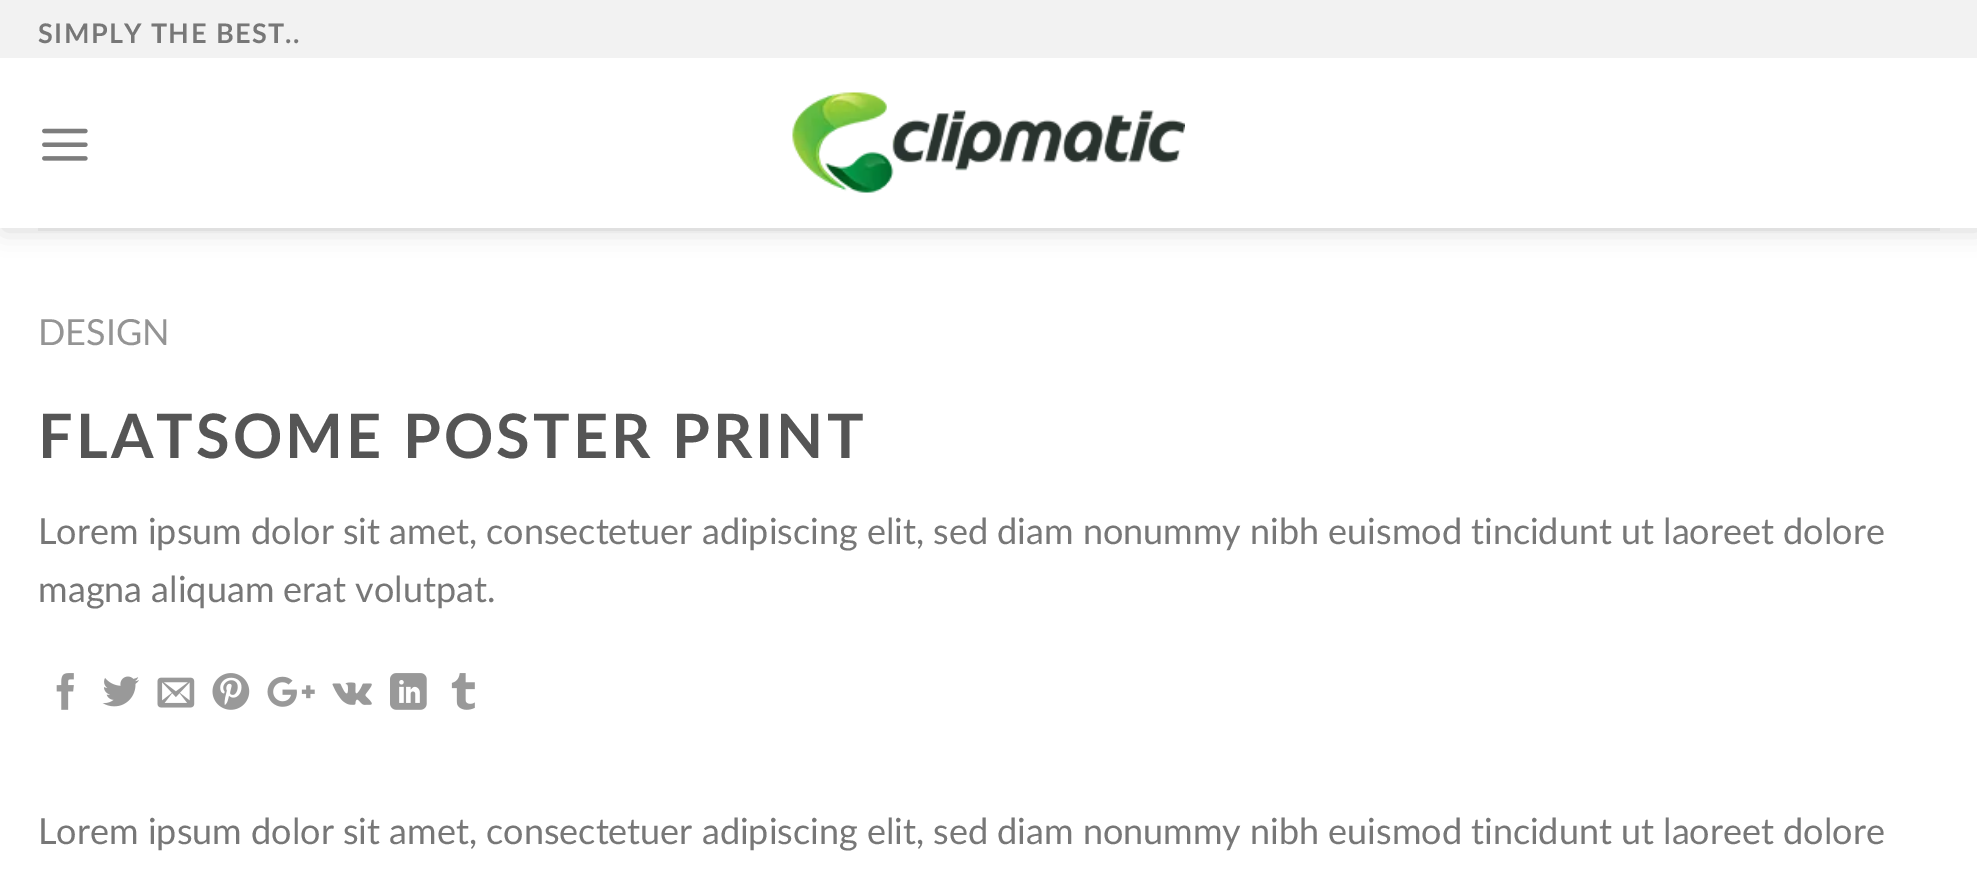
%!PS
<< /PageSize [1977 871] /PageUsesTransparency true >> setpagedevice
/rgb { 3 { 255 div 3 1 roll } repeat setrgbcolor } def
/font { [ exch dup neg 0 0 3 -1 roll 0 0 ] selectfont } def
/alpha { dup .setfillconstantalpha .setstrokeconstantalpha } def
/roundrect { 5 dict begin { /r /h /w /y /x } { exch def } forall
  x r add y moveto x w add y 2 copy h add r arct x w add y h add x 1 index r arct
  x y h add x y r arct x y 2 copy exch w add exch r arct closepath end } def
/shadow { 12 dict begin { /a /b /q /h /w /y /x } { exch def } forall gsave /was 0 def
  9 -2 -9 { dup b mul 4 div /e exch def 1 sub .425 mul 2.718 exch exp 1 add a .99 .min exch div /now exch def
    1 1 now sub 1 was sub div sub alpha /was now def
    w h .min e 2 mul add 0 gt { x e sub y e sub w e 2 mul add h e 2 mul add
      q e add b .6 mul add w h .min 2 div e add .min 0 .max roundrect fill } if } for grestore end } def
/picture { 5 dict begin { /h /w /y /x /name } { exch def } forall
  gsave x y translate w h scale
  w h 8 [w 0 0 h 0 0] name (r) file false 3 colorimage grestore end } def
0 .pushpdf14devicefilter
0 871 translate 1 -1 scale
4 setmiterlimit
255 255 255 rgb
0 0 1977 871 rectfill
gsave
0 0 moveto 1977 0 lineto 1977 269 lineto 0 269 lineto closepath 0 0 moveto 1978 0 lineto 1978 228 lineto 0 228 lineto closepath eoclip newpath
0 0 0 rgb
3 3 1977 227 0 12.5 0.15 shadow
grestore
242 242 242 rgb
0 0 1977 58 rectfill
(img/1.rgb) 42 128 46 33 picture
(img/2.rgb) 792 92 393 101 picture
224 224 224 rgb
38 228 1902 3 rectfill
0.9 alpha
255 255 255 rgb
0 227 1977 1 rectfill
1 alpha
(img/3.rgb) 56 673 18 37 picture
(img/4.rgb) 102 676 37 31 picture
(img/5.rgb) 157 677 38 31 picture
(img/6.rgb) 212 673 38 37 picture
(img/7.rgb) 267 676 48 31 picture
(img/8.rgb) 332 682 40 23 picture
(img/9.rgb) 390 673 37 37 picture
(img/10.rgb) 451 673 24 37 picture
/Lato-Bold 27 font
119 119 119 rgb
38 43 moveto 1.4 0 (SIMPLY THE BEST..) ashow
/Lato-Regular 36 font
148 148 148 rgb
38 345 moveto (DESIGN) show
/Lato-Bold 61.25 font
85 85 85 rgb
38 458 moveto 3.1 0 (FLATSOME POSTER PRINT) ashow
/Lato-Regular 36 font
119 119 119 rgb
[
  [(Lorem ipsum dolor sit amet, consectetuer adipiscing elit, sed diam nonummy nibh euismod tincidunt ut laoreet dolore) 38 544]
  [(magna aliquam erat volutpat.) 38 602]
  [(Lorem ipsum dolor sit amet, consectetuer adipiscing elit, sed diam nonummy nibh euismod tincidunt ut laoreet dolore) 38 844]
] { aload pop moveto show } forall
.poppdf14devicefilter showpage
